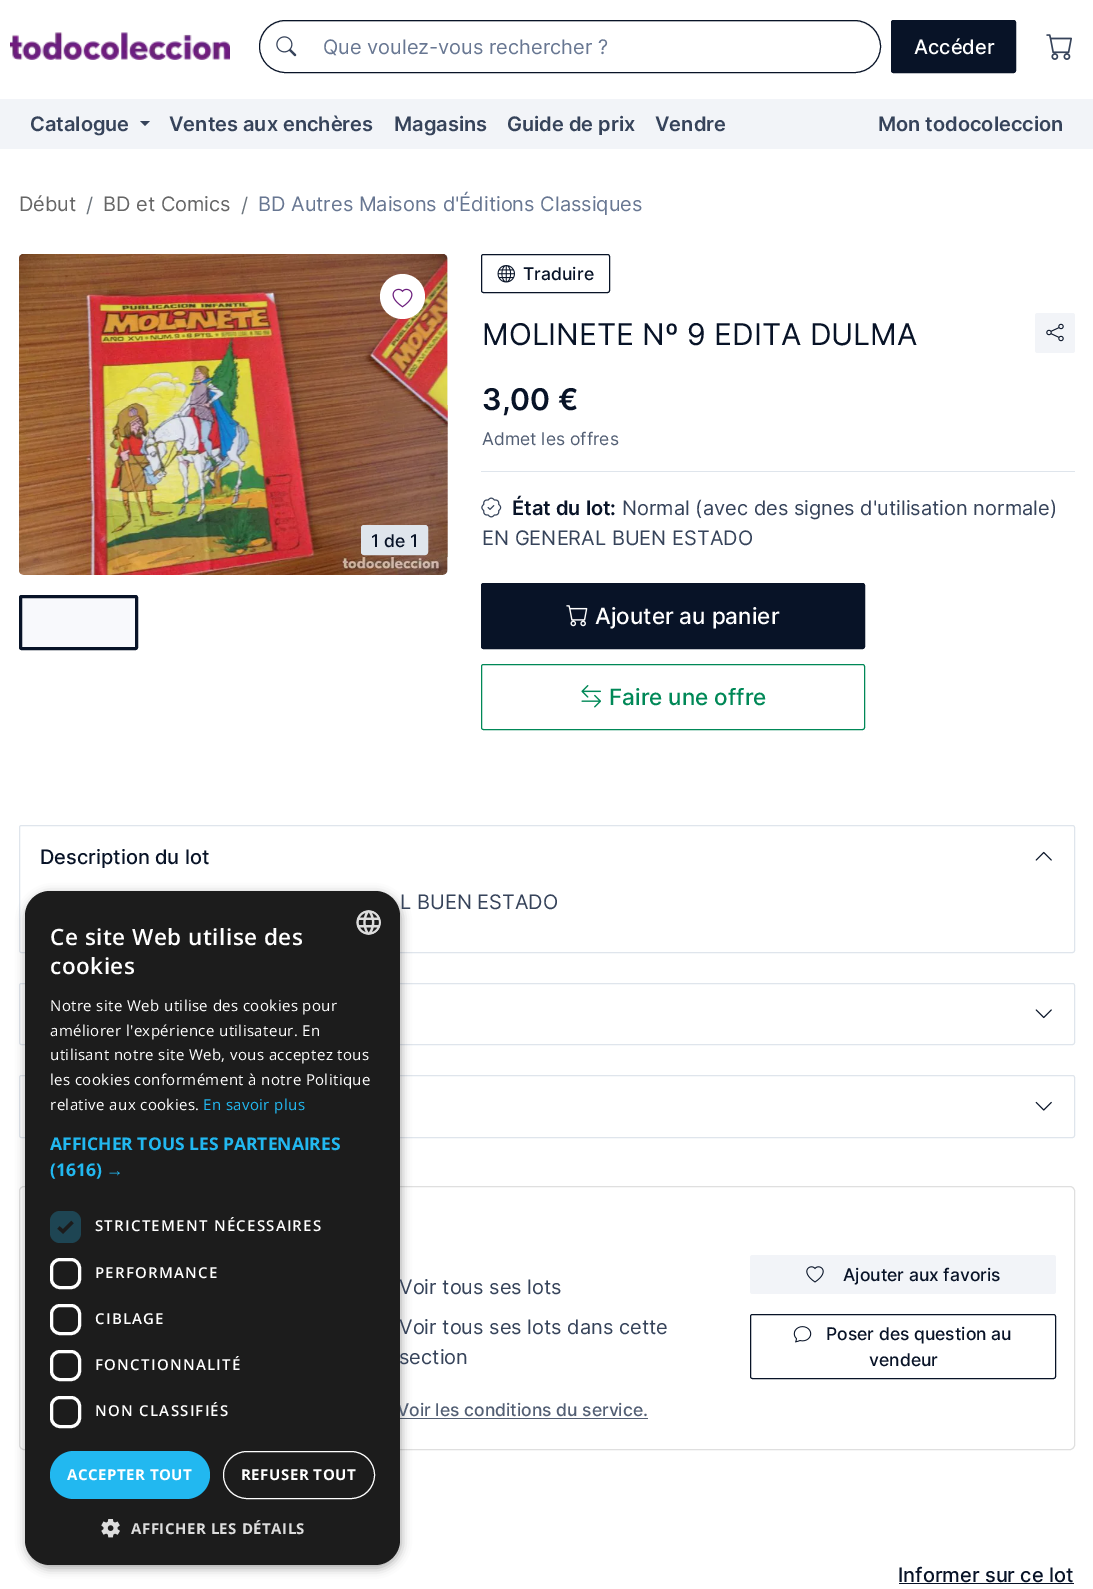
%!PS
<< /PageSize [1093 1589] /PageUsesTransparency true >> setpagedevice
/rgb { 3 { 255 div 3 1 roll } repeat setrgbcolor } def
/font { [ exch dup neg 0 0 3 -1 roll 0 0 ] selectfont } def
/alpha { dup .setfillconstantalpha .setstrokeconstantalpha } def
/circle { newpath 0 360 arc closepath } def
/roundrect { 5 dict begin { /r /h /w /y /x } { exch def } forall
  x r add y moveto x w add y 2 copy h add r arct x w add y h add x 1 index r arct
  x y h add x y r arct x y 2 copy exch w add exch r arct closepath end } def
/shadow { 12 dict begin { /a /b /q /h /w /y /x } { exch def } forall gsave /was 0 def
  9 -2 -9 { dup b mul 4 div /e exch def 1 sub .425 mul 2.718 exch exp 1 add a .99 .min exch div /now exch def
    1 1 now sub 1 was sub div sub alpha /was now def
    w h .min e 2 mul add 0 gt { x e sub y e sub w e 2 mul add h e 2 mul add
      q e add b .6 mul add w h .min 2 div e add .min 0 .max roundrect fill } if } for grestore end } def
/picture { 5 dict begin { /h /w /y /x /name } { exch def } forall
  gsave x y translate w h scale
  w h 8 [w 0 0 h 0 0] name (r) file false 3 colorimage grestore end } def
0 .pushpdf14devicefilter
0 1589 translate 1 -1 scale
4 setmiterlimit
255 255 255 rgb
0 0 1093 1589 rectfill
(img/1.rgb) 10 32 220 28 picture
236 236 236 rgb
285 22 moveto 855 22 lineto 869 22 879 33 880 47 curveto 881 33 869 21 855 21 curveto 285 21 lineto 271 21 259 33 260 47 curveto 261 33 271 22 285 22 curveto closepath fill
8 19 39 rgb
259.5 20.5 621 52 26 roundrect stroke
(img/2.rgb) 276 36 21 21 picture
891.5 20.5 124 52 2 roundrect gsave fill grestore
stroke
(img/3.rgb) 1046 34 26 26 picture
242 244 248 rgb
0 99 1093 50 rectfill
54 67 90 rgb
140 121 moveto 150 121 lineto 145 126 lineto closepath fill
248 249 252 rgb
19 254 429 321 5 roundrect fill
(img/5.rgb) 19 254 429 321 picture
255 255 255 rgb
402.5 296.5 22.5 circle fill
(img/4.rgb) 392 288 21 20 picture
223 229 236 rgb
361.5 525.5 66 29 2.5 roundrect gsave fill grestore
stroke
248 249 252 rgb
20.5 596.5 116 52 1 roundrect gsave fill grestore
8 19 39 rgb
3 setlinewidth
stroke
1 setlinewidth
481.5 254.5 128 38 2 roundrect stroke
(img/6.rgb) 497 265 18 18 picture
242 244 248 rgb
1035 313 40 40 2.5 roundrect fill
(img/7.rgb) 1046 323 18 19 picture
223 229 236 rgb
481 471 594 1 rectfill
(img/8.rgb) 481 497 21 21 picture
8 19 39 rgb
481.5 583.5 383 65 2 roundrect gsave fill grestore
stroke
(img/9.rgb) 566 605 22 22 picture
0 136 87 rgb
481.5 664.5 383 65 2 roundrect stroke
(img/10.rgb) 581 685 20 23 picture
223 229 236 rgb
19.5 825.5 1055 127 2 roundrect stroke
(img/11.rgb) 1035 851 17 10 picture
19.5 983.5 1055 61 2 roundrect stroke
(img/12.rgb) 1035 1009 17 10 picture
19.5 1075.5 1055 62 2 roundrect stroke
(img/13.rgb) 1035 1101 17 10 picture
223 223 223 rgb
19.5 1186.5 1055 263 4.5 roundrect stroke
242 244 248 rgb
750 1255 306 39 2.5 roundrect fill
(img/14.rgb) 806 1266 18 17 picture
8 19 39 rgb
750.5 1314.5 305 64 2 roundrect stroke
(img/15.rgb) 793 1326 19 17 picture
83 95 116 rgb
396 1418 252 1 rectfill
8 19 39 rgb
899 1583 175 1 rectfill
0 0 0 rgb
26 894 375 674 25 5 0.35 shadow
/Inter-Regular 20 font
104 119 146 rgb
323 54 moveto (Que voulez-vous rechercher ?) show
/Inter-Medium 20 font
255 255 255 rgb
914 54 moveto (Accéder) show
/Inter-SemiBold 20 font
54 67 90 rgb
[
  [(Catalogue) 30 131]
  [(Ventes aux enchères) 169 131]
  [(Magasins) 394 131]
  [(Guide de prix) 507 131]
  [(Vendre) 655 131]
  [(Mon todocoleccion) 878 131]
] { aload pop moveto show } forall
/Inter-Regular 20 font
102 102 102 rgb
19 211 moveto (Début) show
108 117 125 rgb
86 212 moveto (/) show
102 102 102 rgb
103 211 moveto (BD et Comics) show
108 117 125 rgb
241 212 moveto (/) show
104 119 146 rgb
258 211 moveto (BD Autres Maisons d'Éditions Classiques) show
/Inter-Medium 17.5 font
8 19 39 rgb
371 547 moveto (1 de 1) show
523 280 moveto (Traduire) show
/Inter-Regular 30 font
482 345 moveto (MOLINETE Nº 9 EDITA DULMA) show
/Inter-SemiBold 30 font
482 410 moveto (3,00 €) show
/Inter-Regular 17.5 font
83 95 116 rgb
482 445 moveto (Admet les offres) show
/Inter-SemiBold 20 font
8 19 39 rgb
512 515 moveto (État du lot:) show
/Inter-Regular 20 font
54 67 90 rgb
622 515 moveto (Normal \(avec des signes d'utilisation normale\)) show
482 545 moveto (EN GENERAL BUEN ESTADO) show
/Inter-Medium 22.5 font
255 255 255 rgb
595 624 moveto (Ajouter au panier) show
0 136 87 rgb
609 705 moveto (Faire une offre) show
/Inter-Medium 20 font
8 19 39 rgb
40 864 moveto (Description du lot) show
/Inter-Regular 20 font
54 67 90 rgb
[
  [(L BUEN ESTADO) 400 909]
  [(Voir tous ses lots) 399 1294]
  [(Voir tous ses lots dans cette) 399 1334]
  [(section) 399 1364]
] { aload pop moveto show } forall
/Inter-Medium 17.5 font
8 19 39 rgb
[
  [(Ajouter aux favoris) 843 1281]
  [(Poser des question au) 826 1340]
  [(vendeur) 869 1366]
] { aload pop moveto show } forall
83 95 116 rgb
397 1416 moveto (Voir les conditions du service.) show
/Inter-Medium 20 font
8 19 39 rgb
898 1582 moveto (Informer sur ce lot) show
28 28 28 rgb
25 891 375 674 25 roundrect fill
(img/16.rgb) 356 910 25 25 picture
/OpenSans-SemiBold 22.5 font
255 255 255 rgb
50 945 moveto 0.5 0 (Ce site Web utilise des) ashow
50 974 moveto 0.5 0 (cookies) ashow
/OpenSans-Regular 15 font
50 1011 moveto 0.4 0 (Notre site Web utilise des cookies pour) ashow
50 1036 moveto 0.4 0 (améliorer l'expérience utilisateur. En) ashow
50 1060 moveto 0.4 0 (utilisant notre site Web, vous acceptez tous) ashow
50 1085 moveto 0.4 0 (les cookies conformément à notre Politique) ashow
50 1110 moveto 0.4 0 (relative aux cookies.) ashow
34 184 240 rgb
203 1110 moveto 0.4 0 (En savoir plus) ashow
/OpenSans-Bold 17.5 font
50 1150 moveto (AFFICHER TOUS LES PARTENAIRES) show
50 1176 moveto (\(1616\)) show
/LiberationSans-Bold 17.5 font
106 1176 moveto (→) show
30 69 83 rgb
50 1211 31 32 10 roundrect fill
28 28 28 rgb
3.3 setlinewidth
58.5 1227.5 moveto 63 1231.5 lineto 72.5 1222 lineto stroke
/OpenSans-SemiBold 15 font
255 255 255 rgb
95 1231 moveto 1.25 0 (STRICTEMENT NÉCESSAIRES) ashow
3 setlinewidth
51.5 1259.5 28 28 8.5 roundrect stroke
95 1278 moveto 1.25 0 (PERFORMANCE) ashow
51.5 1305.5 28 28 8.5 roundrect stroke
95 1324 moveto 1.25 0 (CIBLAGE) ashow
51.5 1351.5 28 28 8.5 roundrect stroke
95 1370 moveto 1.25 0 (FONCTIONNALITÉ) ashow
51.5 1397.5 28 29 8.5 roundrect stroke
95 1416 moveto 1.25 0 (NON CLASSIFIÉS) ashow
34 184 240 rgb
50 1451 160 48 24 roundrect fill
/OpenSans-Bold 15 font
255 255 255 rgb
67 1480 moveto 0.5 0 (ACCEPTER TOUT) ashow
1 setlinewidth
223.5 1451.5 151 47 23.5 roundrect stroke
241 1480 moveto 0.5 0 (REFUSER TOUT) ashow
(img/17.rgb) 101 1519 19 19 picture
221 221 221 rgb
131 1534 moveto 0.5 0 (AFFICHER LES DÉTAILS) ashow
.poppdf14devicefilter showpage
